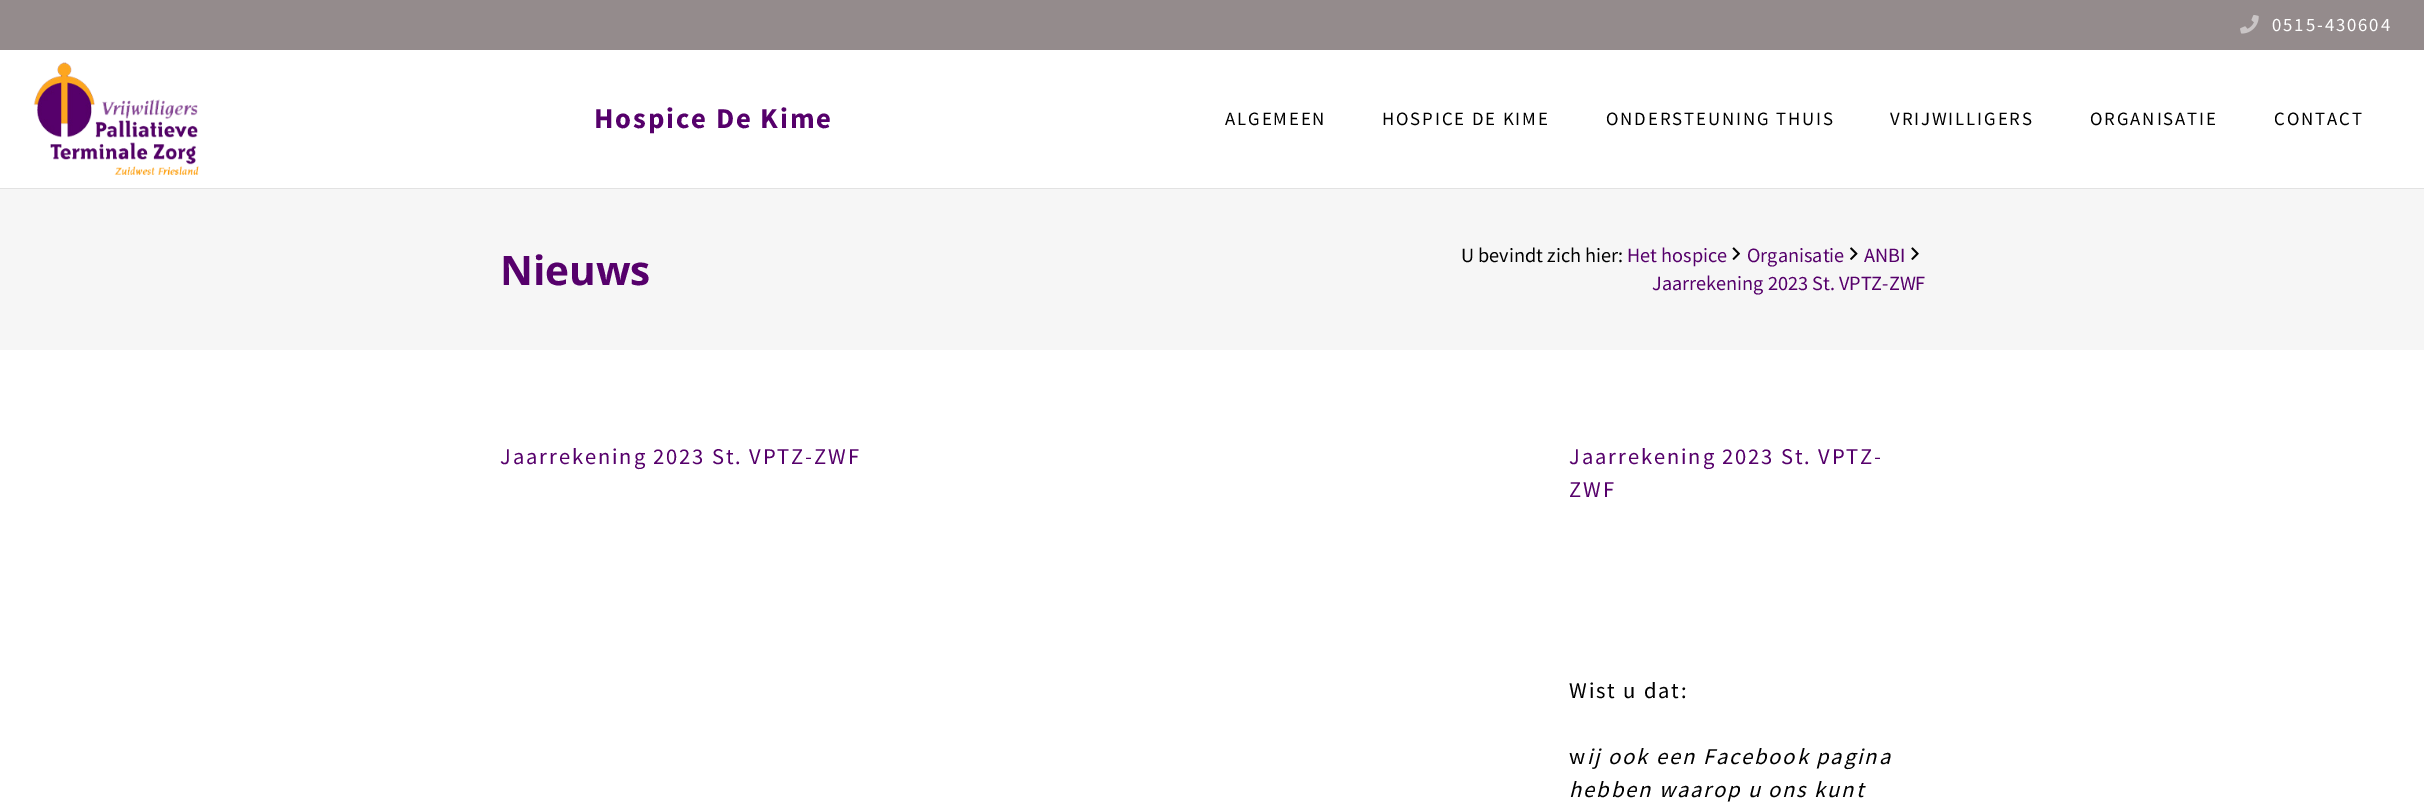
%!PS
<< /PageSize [2424 809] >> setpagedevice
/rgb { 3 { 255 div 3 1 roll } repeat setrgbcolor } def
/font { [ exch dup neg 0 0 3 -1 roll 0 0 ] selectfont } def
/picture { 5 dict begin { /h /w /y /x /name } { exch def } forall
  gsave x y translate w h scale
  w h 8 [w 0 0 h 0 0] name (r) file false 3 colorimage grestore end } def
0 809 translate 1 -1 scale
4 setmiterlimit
255 255 255 rgb
0 0 2424 809 rectfill
148 139 140 rgb
0 0 2424 50 rectfill
(img/1.rgb) 2240 15 19 19 picture
226 226 226 rgb
0 188 2424 1 rectfill
(img/2.rgb) 33 62 166 113 picture
246 246 246 rgb
0 189 2424 161 rectfill
(img/3.rgb) 1732 247 8 13 picture
(img/4.rgb) 1850 247 8 13 picture
(img/5.rgb) 1911 247 8 13 picture
/SourceSansPro-Regular 18.75 font
255 255 255 rgb
2272 31 moveto 1.9 0 (0515-430604) ashow
/SourceSansPro-Bold 28.75 font
86 0 107 rgb
594 128 moveto 1.9 0 (Hospice De Kime) ashow
/SourceSansPro-Regular 18.75 font
0 0 0 rgb
1225 125 moveto 1.9 0 (ALGEMEEN) ashow
1382 125 moveto 1.9 0 (HOSPICE DE KIME) ashow
1606 125 moveto 1.9 0 (ONDERSTEUNING THUIS) ashow
1890 125 moveto 1.9 0 (VRIJWILLIGERS) ashow
2090 125 moveto 1.9 0 (ORGANISATIE) ashow
2274 125 moveto 1.9 0 (CONTACT) ashow
/OpenSans-Bold 40.5 font
86 0 107 rgb
500 285 moveto (Nieuws) show
/SourceSansPro-Regular 20.25 font
0 0 0 rgb
1461 262 moveto (U bevindt zich hier:) show
86 0 107 rgb
[
  [(Het hospice) 1627 262]
  [(Organisatie) 1747 262]
  [(ANBI) 1864 262]
  [(Jaarrekening 2023 St. VPTZ-ZWF) 1652 290]
] { aload pop moveto show } forall
/SourceSansPro-Regular 22.5 font
500 464 moveto 1.9 0 (Jaarrekening 2023 St. VPTZ-ZWF) ashow
1569 464 moveto 1.9 0 (Jaarrekening 2023 St. VPTZ-) ashow
1569 497 moveto 1.9 0 (ZWF) ashow
0 0 0 rgb
1569 698 moveto 1.9 0 (Wist u dat:) ashow
1569 764 moveto 1.9 0 (w) ashow
/SourceSansPro-Italic 22.5 font
1587 764 moveto 1.9 0 (ij ook een Facebook pagina) ashow
1569 797 moveto 1.9 0 (hebben waarop u ons kunt) ashow
showpage
